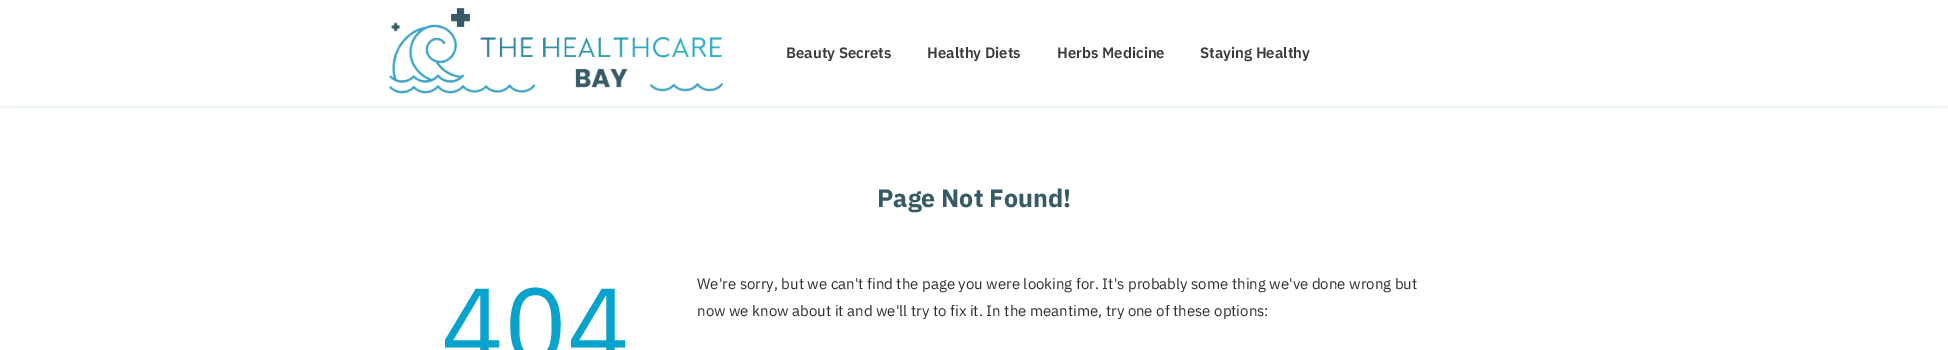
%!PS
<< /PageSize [1948 350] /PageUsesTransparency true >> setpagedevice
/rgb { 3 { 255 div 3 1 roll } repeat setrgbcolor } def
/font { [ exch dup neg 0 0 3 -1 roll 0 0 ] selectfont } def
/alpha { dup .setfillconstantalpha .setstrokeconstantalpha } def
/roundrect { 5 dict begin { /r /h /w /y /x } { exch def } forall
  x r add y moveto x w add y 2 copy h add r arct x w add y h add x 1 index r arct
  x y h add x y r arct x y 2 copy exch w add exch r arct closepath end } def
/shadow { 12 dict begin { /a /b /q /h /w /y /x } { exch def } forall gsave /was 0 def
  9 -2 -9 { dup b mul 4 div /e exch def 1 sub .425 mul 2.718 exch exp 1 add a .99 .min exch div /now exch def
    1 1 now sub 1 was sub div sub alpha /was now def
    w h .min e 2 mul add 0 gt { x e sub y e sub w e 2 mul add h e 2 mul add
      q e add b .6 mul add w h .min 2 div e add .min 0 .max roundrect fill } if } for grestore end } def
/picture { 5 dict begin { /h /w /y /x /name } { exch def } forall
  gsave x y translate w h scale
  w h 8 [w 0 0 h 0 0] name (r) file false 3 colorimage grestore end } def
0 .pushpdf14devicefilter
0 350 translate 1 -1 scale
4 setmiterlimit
255 255 255 rgb
0 0 1948 350 rectfill
gsave
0 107 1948 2 rectclip
0 135 176 rgb
0 2 1948 107 0 1 0.05 shadow
grestore
235 235 235 rgb
0 106 1948 1 rectfill
(img/1.rgb) 389 8 334 86 picture
/IBMPlexSans-SemiBold 15 font
58 58 58 rgb
[
  [(Beauty Secrets) 786 58]
  [(Healthy Diets) 927 58]
  [(Herbs Medicine) 1057 58]
  [(Staying Healthy) 1200 58]
] { aload pop moveto show } forall
/IBMPlexSans-Bold 25 font
54 91 103 rgb
877 207 moveto (Page Not Found!) show
/IBMPlexSans-Regular 105 font
7 163 204 rgb
441 362 moveto (404) show
/IBMPlexSans-Regular 15 font
48 48 48 rgb
697 289 moveto (We're sorry, but we can't find the page you were looking for. It's probably some thing we've done wrong but) show
697 316 moveto (now we know about it and we'll try to fix it. In the meantime, try one of these options:) show
.poppdf14devicefilter showpage
